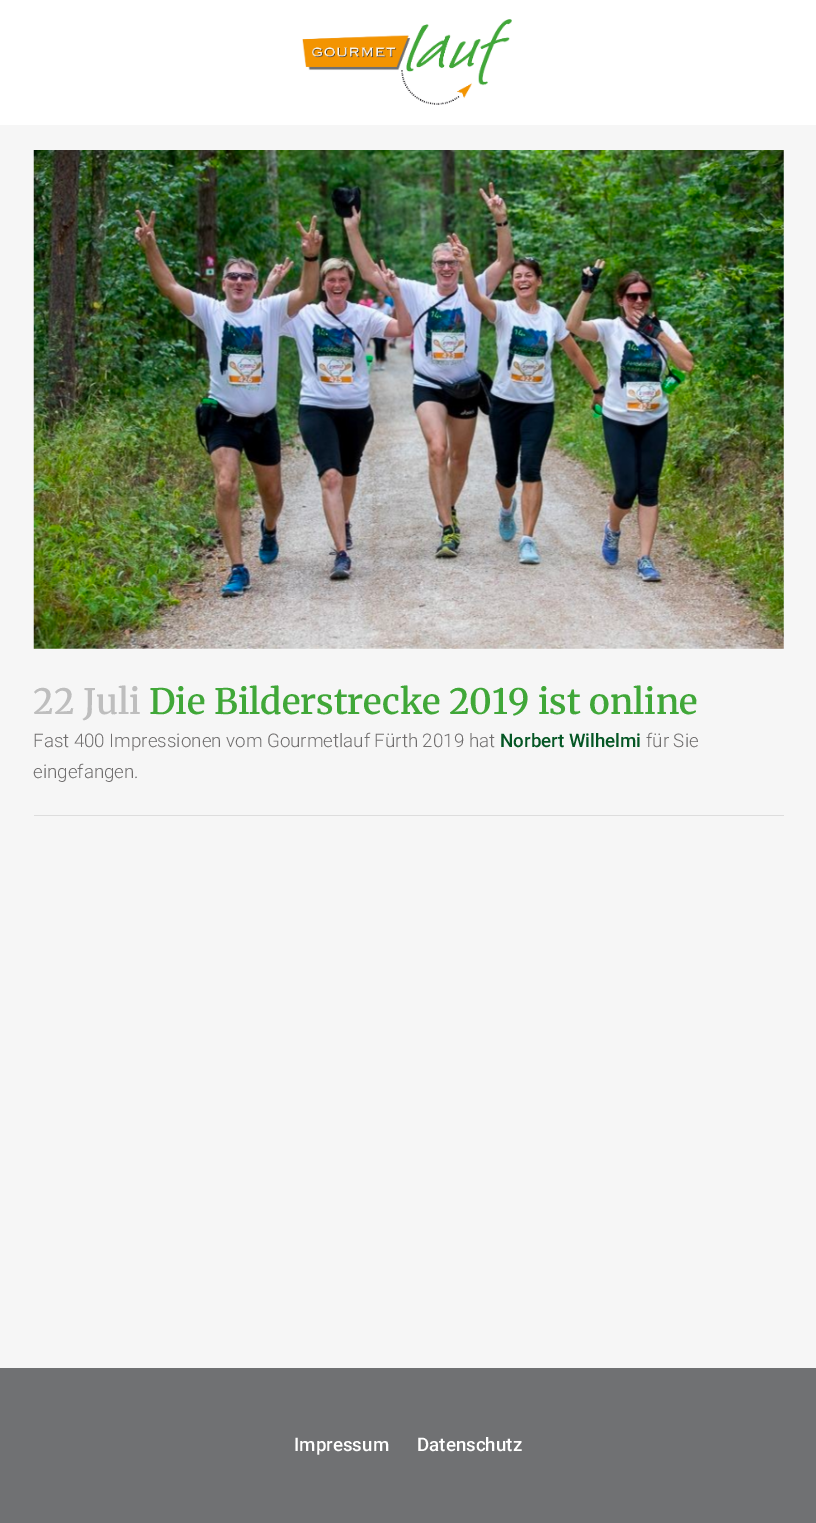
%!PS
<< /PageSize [816 1523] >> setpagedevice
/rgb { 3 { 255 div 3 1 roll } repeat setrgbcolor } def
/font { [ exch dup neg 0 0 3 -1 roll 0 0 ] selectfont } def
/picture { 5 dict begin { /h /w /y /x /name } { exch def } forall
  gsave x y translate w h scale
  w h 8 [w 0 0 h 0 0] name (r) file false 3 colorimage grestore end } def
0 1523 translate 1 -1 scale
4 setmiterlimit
246 246 246 rgb
0 0 816 1523 rectfill
255 255 255 rgb
0 0 816 125 rectfill
(img/1.rgb) 302 19 210 86 picture
(img/2.rgb) 33 150 751 499 picture
221 221 221 rgb
34 815 750 1 rectfill
112 113 115 rgb
0 1368 816 155 rectfill
/Merriweather-SemiBold 35 font
190 190 190 rgb
33 714 moveto (22 Juli) show
64 167 56 rgb
149 714 moveto (Die Bilderstrecke 2019 ist online) show
/Roboto-Light 18.75 font
112 110 110 rgb
33 747 moveto (Fast 400 Impressionen vom Gourmetlauf Fürth 2019 hat) show
/Roboto-Medium 18.75 font
4 86 36 rgb
500 747 moveto (Norbert Wilhelmi) show
/Roboto-Light 18.75 font
112 110 110 rgb
646 747 moveto (für Sie) show
33 778 moveto (eingefangen.) show
/Roboto-Medium 18.75 font
255 255 255 rgb
294 1451 moveto (Impressum) show
417 1451 moveto (Datenschutz) show
showpage
